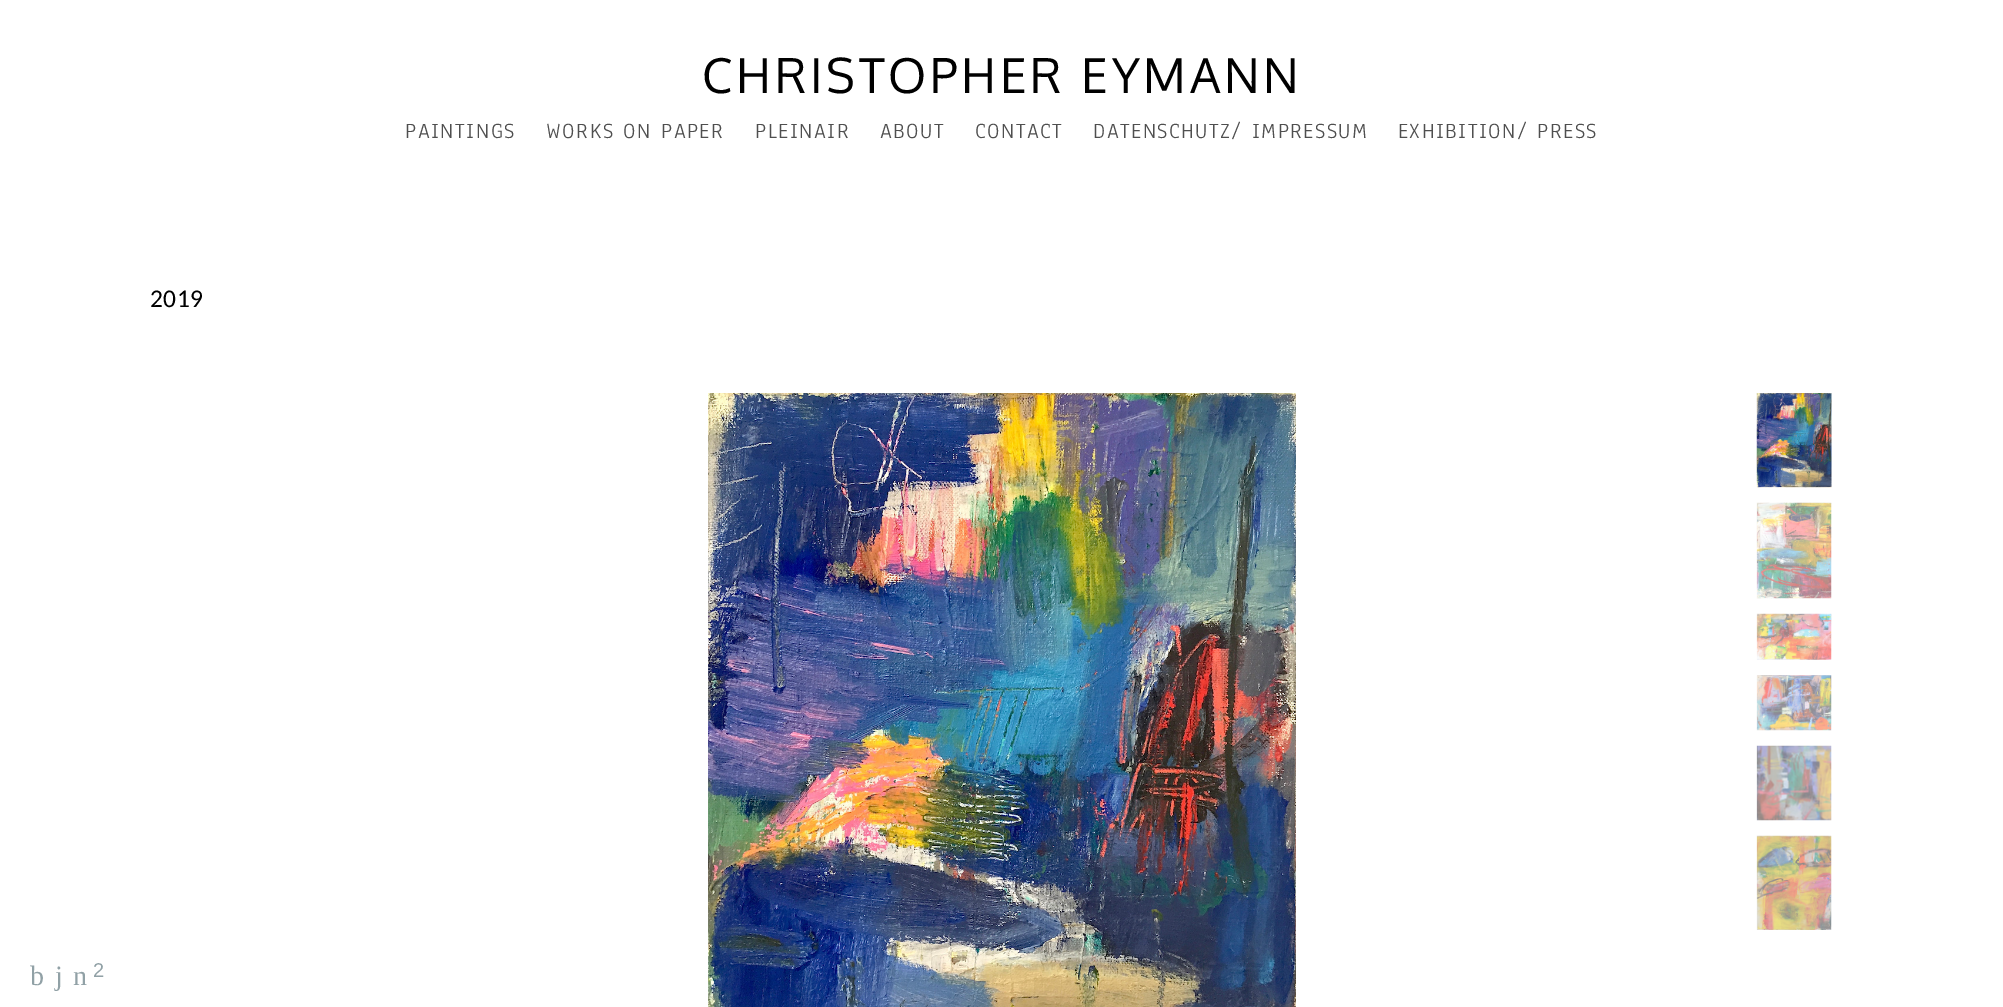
%!PS
<< /PageSize [2003 1007] >> setpagedevice
/rgb { 3 { 255 div 3 1 roll } repeat setrgbcolor } def
/font { [ exch dup neg 0 0 3 -1 roll 0 0 ] selectfont } def
/picture { 5 dict begin { /h /w /y /x /name } { exch def } forall
  gsave x y translate w h scale
  w h 8 [w 0 0 h 0 0] name (r) file false 3 colorimage grestore end } def
0 1007 translate 1 -1 scale
4 setmiterlimit
255 255 255 rgb
0 0 2003 1007 rectfill
(img/1.rgb) 708 393 588 614 picture
(img/2.rgb) 1756 393 76 95 picture
(img/3.rgb) 1756 502 76 97 picture
(img/4.rgb) 1756 613 76 47 picture
(img/5.rgb) 1756 675 76 56 picture
(img/6.rgb) 1756 745 76 76 picture
(img/7.rgb) 1756 835 76 95 picture
/Oxygen-Regular 48 font
0 0 0 rgb
702 93 moveto 3.75 0 (CHRISTOPHER EYMANN) ashow
/Anaheim-Regular 22.5 font
79 79 79 rgb
405 138 moveto 1.5 0 (PAINTINGS) ashow
546 138 moveto 1.5 0 (WORKS ON PAPER) ashow
755 138 moveto 1.5 0 (PLEINAIR) ashow
880 138 moveto 1.5 0 (ABOUT) ashow
975 138 moveto 1.5 0 (CONTACT) ashow
1093 138 moveto 1.5 0 (DATENSCHUTZ/ IMPRESSUM) ashow
1398 138 moveto 1.5 0 (EXHIBITION/ PRESS) ashow
/Carlito-Regular 25.5 font
0 0 0 rgb
150 307 moveto 0.5 0 (2019) ashow
/LiberationSerif-Regular 28 font
145 161 166 rgb
[
  [(b) 30 985]
  [(j) 55 985]
  [(n) 73 985]
] { aload pop moveto show } forall
/LiberationSans-Regular 20 font
93 977 moveto (2) show
showpage
